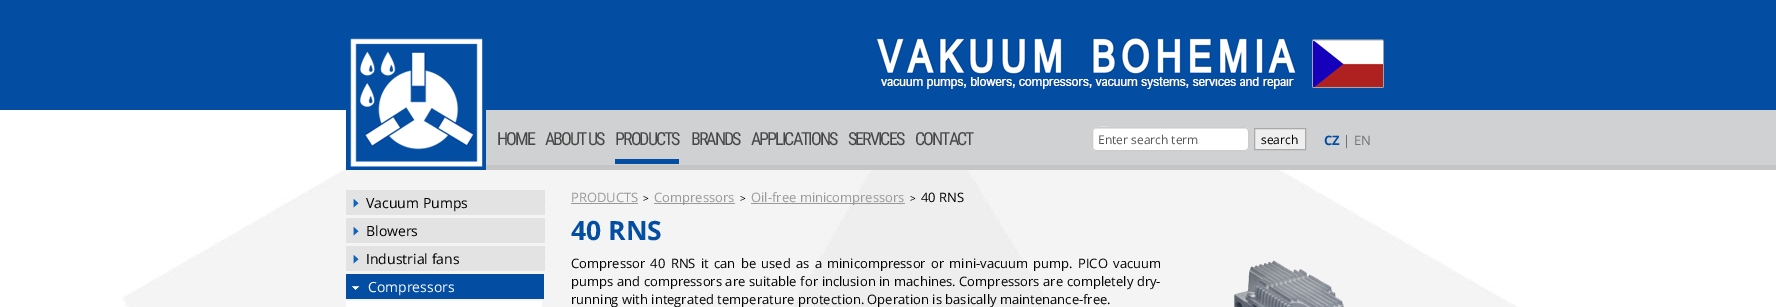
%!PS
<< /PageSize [1776 307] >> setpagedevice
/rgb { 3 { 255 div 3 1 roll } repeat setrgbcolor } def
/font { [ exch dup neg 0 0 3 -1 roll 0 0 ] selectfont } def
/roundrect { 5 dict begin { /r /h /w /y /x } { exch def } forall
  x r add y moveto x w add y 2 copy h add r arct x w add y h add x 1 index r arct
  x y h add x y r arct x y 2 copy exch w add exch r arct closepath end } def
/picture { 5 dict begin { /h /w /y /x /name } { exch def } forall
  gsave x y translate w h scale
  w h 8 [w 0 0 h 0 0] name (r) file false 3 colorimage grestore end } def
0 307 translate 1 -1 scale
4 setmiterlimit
3 78 162 rgb
0 0 1776 307 rectfill
(img/1.rgb) 877 38 507 51 picture
255 255 255 rgb
0 110 1776 197 rectfill
(img/2.rgb) 122 110 1395 197 picture
207 209 211 rgb
486 110 1290 55 rectfill
197 197 197 rgb
486 165 1290 5 rectfill
(img/3.rgb) 346 38 140 132 picture
3 78 162 rgb
615 159 64 5 rectfill
255 255 255 rgb
1092 127 157 24 4 roundrect fill
236 236 236 rgb
1096 129 moveto 1245 129 lineto 1247 129 1248 130 1248 132 curveto 1248 130 1248 129 1246 128 curveto 1121 128 lineto 1113 128 1093 123 1093 132 curveto 1093 130 1094 129 1096 129 curveto closepath fill
204 204 204 rgb
1092.5 127.5 156 23 3.5 roundrect stroke
239 239 239 rgb
1254.5 128.5 moveto 1305.5 128.5 lineto 1305.5 149.5 lineto 1254.5 149.5 lineto closepath gsave fill grestore
170 170 170 rgb
stroke
227 227 227 rgb
346 190 199 25 rectfill
(img/4.rgb) 353 199 192 9 picture
346 218 199 25 rectfill
(img/4.rgb) 353 227 192 9 picture
346 246 199 25 rectfill
(img/4.rgb) 353 255 192 9 picture
3 78 162 rgb
346 274 198 25 rectfill
(img/5.rgb) 352 286 8 4 picture
[
  [346 301 196 6 255 255 255]
  [571 203 67 1 153 153 153]
  [654 203 81 1 153 153 153]
  [751 203 154 1 153 153 153]
] { aload pop rgb rectfill } forall
(img/6.rgb) 1234 260 110 47 picture
/RobotoCondensed-Regular 18 font
71 71 71 rgb
497 145 moveto -2 0 (HOME) ashow
545 145 moveto -2 0 (ABOUT US) ashow
615 145 moveto -2 0 (PRODUCTS) ashow
691 145 moveto -2 0 (BRANDS) ashow
751 145 moveto -2 0 (APPLICATIONS) ashow
848 145 moveto -2 0 (SERVICES) ashow
915 145 moveto -2 0 (CONTACT) ashow
/OpenSans-Bold 13 font
3 78 162 rgb
1324 145 moveto (CZ) show
/OpenSans-Regular 13 font
115 115 115 rgb
1343 145 moveto (| EN) show
/OpenSans-Regular 12 font
85 85 85 rgb
1098 144 moveto (Enter search term) show
0 0 0 rgb
1261 144 moveto (search) show
/OpenSans-Regular 14 font
[
  [(Vacuum Pumps) 366 208]
  [(Blowers) 366 236]
  [(Industrial fans) 366 264]
] { aload pop moveto show } forall
255 255 255 rgb
368 292 moveto (Compressors) show
/OpenSans-Regular 13 font
153 153 153 rgb
571 202 moveto (PRODUCTS) show
/OpenSans-Regular 10 font
0 0 0 rgb
643 202 moveto (>) show
/OpenSans-Regular 13 font
153 153 153 rgb
654 202 moveto (Compressors) show
/OpenSans-Regular 10 font
0 0 0 rgb
740 202 moveto (>) show
/OpenSans-Regular 13 font
153 153 153 rgb
751 202 moveto (Oil-free minicompressors) show
/OpenSans-Regular 10 font
0 0 0 rgb
910 202 moveto (>) show
/OpenSans-Regular 13 font
921 202 moveto (40 RNS) show
/OpenSans-Bold 26.5 font
3 78 162 rgb
571 240 moveto (40 RNS) show
/OpenSans-Regular 13 font
0 0 0 rgb
571 268 moveto 1.9 0 32 (Compressor 40 RNS it can be used as a minicompressor or mini-vacuum pump. PICO vacuum) widthshow
571 286 moveto 0.25 0 32 (pumps and compressors are suitable for inclusion in machines. Compressors are completely dry-) widthshow
571 304 moveto (running with integrated temperature protection. Operation is basically maintenance-free.) show
showpage
